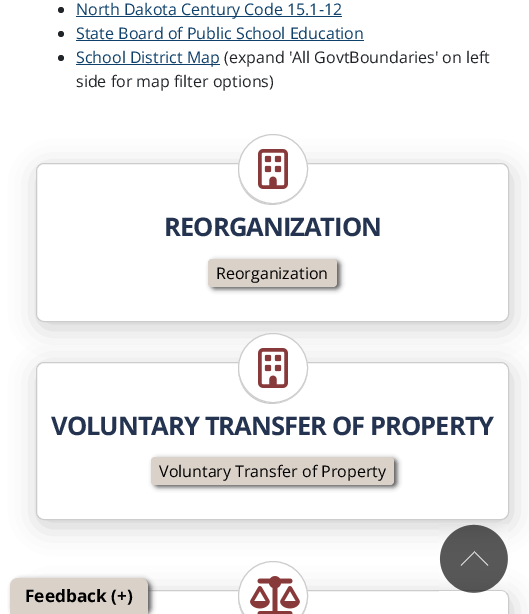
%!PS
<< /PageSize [529 614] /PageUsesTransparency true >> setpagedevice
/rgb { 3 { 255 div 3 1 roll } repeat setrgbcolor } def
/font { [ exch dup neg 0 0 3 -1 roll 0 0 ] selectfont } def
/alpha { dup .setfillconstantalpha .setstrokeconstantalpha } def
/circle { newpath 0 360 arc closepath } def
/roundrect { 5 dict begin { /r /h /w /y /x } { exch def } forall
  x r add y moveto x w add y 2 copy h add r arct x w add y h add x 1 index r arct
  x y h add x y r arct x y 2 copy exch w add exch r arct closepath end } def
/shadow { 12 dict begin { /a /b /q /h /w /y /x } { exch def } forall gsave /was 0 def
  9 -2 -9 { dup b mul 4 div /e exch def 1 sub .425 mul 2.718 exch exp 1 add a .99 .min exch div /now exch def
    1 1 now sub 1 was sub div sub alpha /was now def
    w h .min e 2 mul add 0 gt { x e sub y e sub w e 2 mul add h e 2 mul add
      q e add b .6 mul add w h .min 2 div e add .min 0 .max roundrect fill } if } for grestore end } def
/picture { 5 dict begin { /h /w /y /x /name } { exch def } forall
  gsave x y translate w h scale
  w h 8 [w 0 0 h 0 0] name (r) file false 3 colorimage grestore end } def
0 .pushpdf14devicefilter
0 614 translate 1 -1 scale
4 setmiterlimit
255 255 255 rgb
0 0 529 614 rectfill
33 37 41 rgb
61 10 3 circle fill
15 65 107 rgb
76 16 266 1 rectfill
33 37 41 rgb
61 34 3 circle fill
15 65 107 rgb
76 40 288 1 rectfill
33 37 41 rgb
61 58 3 circle fill
15 65 107 rgb
76 64 144 1 rectfill
204 204 204 rgb
38 169 473 159 8 13.5 1 shadow
255 255 255 rgb
36.5 163.5 472 158 7.5 roundrect gsave fill grestore
204 204 204 rgb
stroke
238 170 moveto 238 177 240 184 244 190 curveto 263 218 308 204 308 169 curveto 308 189 292 204 273 204 curveto 254 204 238 189 238 170 curveto closepath fill
255 255 255 rgb
273 169 34.5 circle gsave fill grestore
204 204 204 rgb
stroke
(img/1.rgb) 258 149 30 40 picture
85 85 85 rgb
211 261 129 28 4 2.5 1 shadow
218 209 200 rgb
208 259 129 28 4 roundrect fill
204 204 204 rgb
38 368 473 158 8 13.5 1 shadow
255 255 255 rgb
36.5 362.5 472 157 7.5 roundrect gsave fill grestore
204 204 204 rgb
stroke
238 368 moveto 238 376 240 383 244 389 curveto 263 417 308 403 308 368 curveto 308 388 292 403 273 403 curveto 254 403 238 388 238 368 curveto closepath fill
255 255 255 rgb
273 368 34.5 circle gsave fill grestore
204 204 204 rgb
stroke
(img/1.rgb) 258 348 30 40 picture
85 85 85 rgb
154 459 243 28 4 2.5 1 shadow
218 209 200 rgb
151 457 243 28 4 roundrect fill
204 204 204 rgb
38 596 473 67 8 13.5 1 shadow
255 255 255 rgb
36.5 590.5 472 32 7.5 roundrect gsave fill grestore
204 204 204 rgb
stroke
238 596 moveto 238 604 240 611 244 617 curveto 263 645 308 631 308 596 curveto 308 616 292 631 273 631 curveto 254 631 238 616 238 596 curveto closepath fill
255 255 255 rgb
273 596 34.5 circle gsave fill grestore
204 204 204 rgb
stroke
(img/2.rgb) 250 576 50 38 picture
85 85 85 rgb
13 580 138 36 8 2.5 1 shadow
218 209 200 rgb
18 578 moveto 140 578 lineto 144.5 578 148 581.5 148 586 curveto 148 614 lineto 10 614 lineto 10 586 lineto 10 581.5 13.5 578 18 578 curveto closepath fill
(img/3.rgb) 439 524 69 69 picture
/OpenSans-Regular 16 font
15 65 107 rgb
[
  [(North Dakota Century Code 15.1-12) 76 15]
  [(State Board of Public School Education) 76 39]
  [(School District Map) 76 63]
] { aload pop moveto show } forall
33 37 41 rgb
224 63 moveto (\(expand 'All GovtBoundaries' on left) show
76 87 moveto (side for map filter options\)) show
/OpenSans-Bold 25.6 font
36 51 80 rgb
164 236 moveto -1 0 (REORGANIZATION) ashow
/OpenSans-Regular 16 font
0 0 0 rgb
216 279 moveto (Reorganization) show
/OpenSans-Bold 25.6 font
36 51 80 rgb
51 435 moveto -1 0 (VOLUNTARY TRANSFER OF PROPERTY) ashow
/OpenSans-Regular 16 font
0 0 0 rgb
159 477 moveto (Voluntary Transfer of Property) show
/OpenSans-Bold 17.25 font
25 602 moveto (Feedback \(+\)) show
.poppdf14devicefilter showpage
